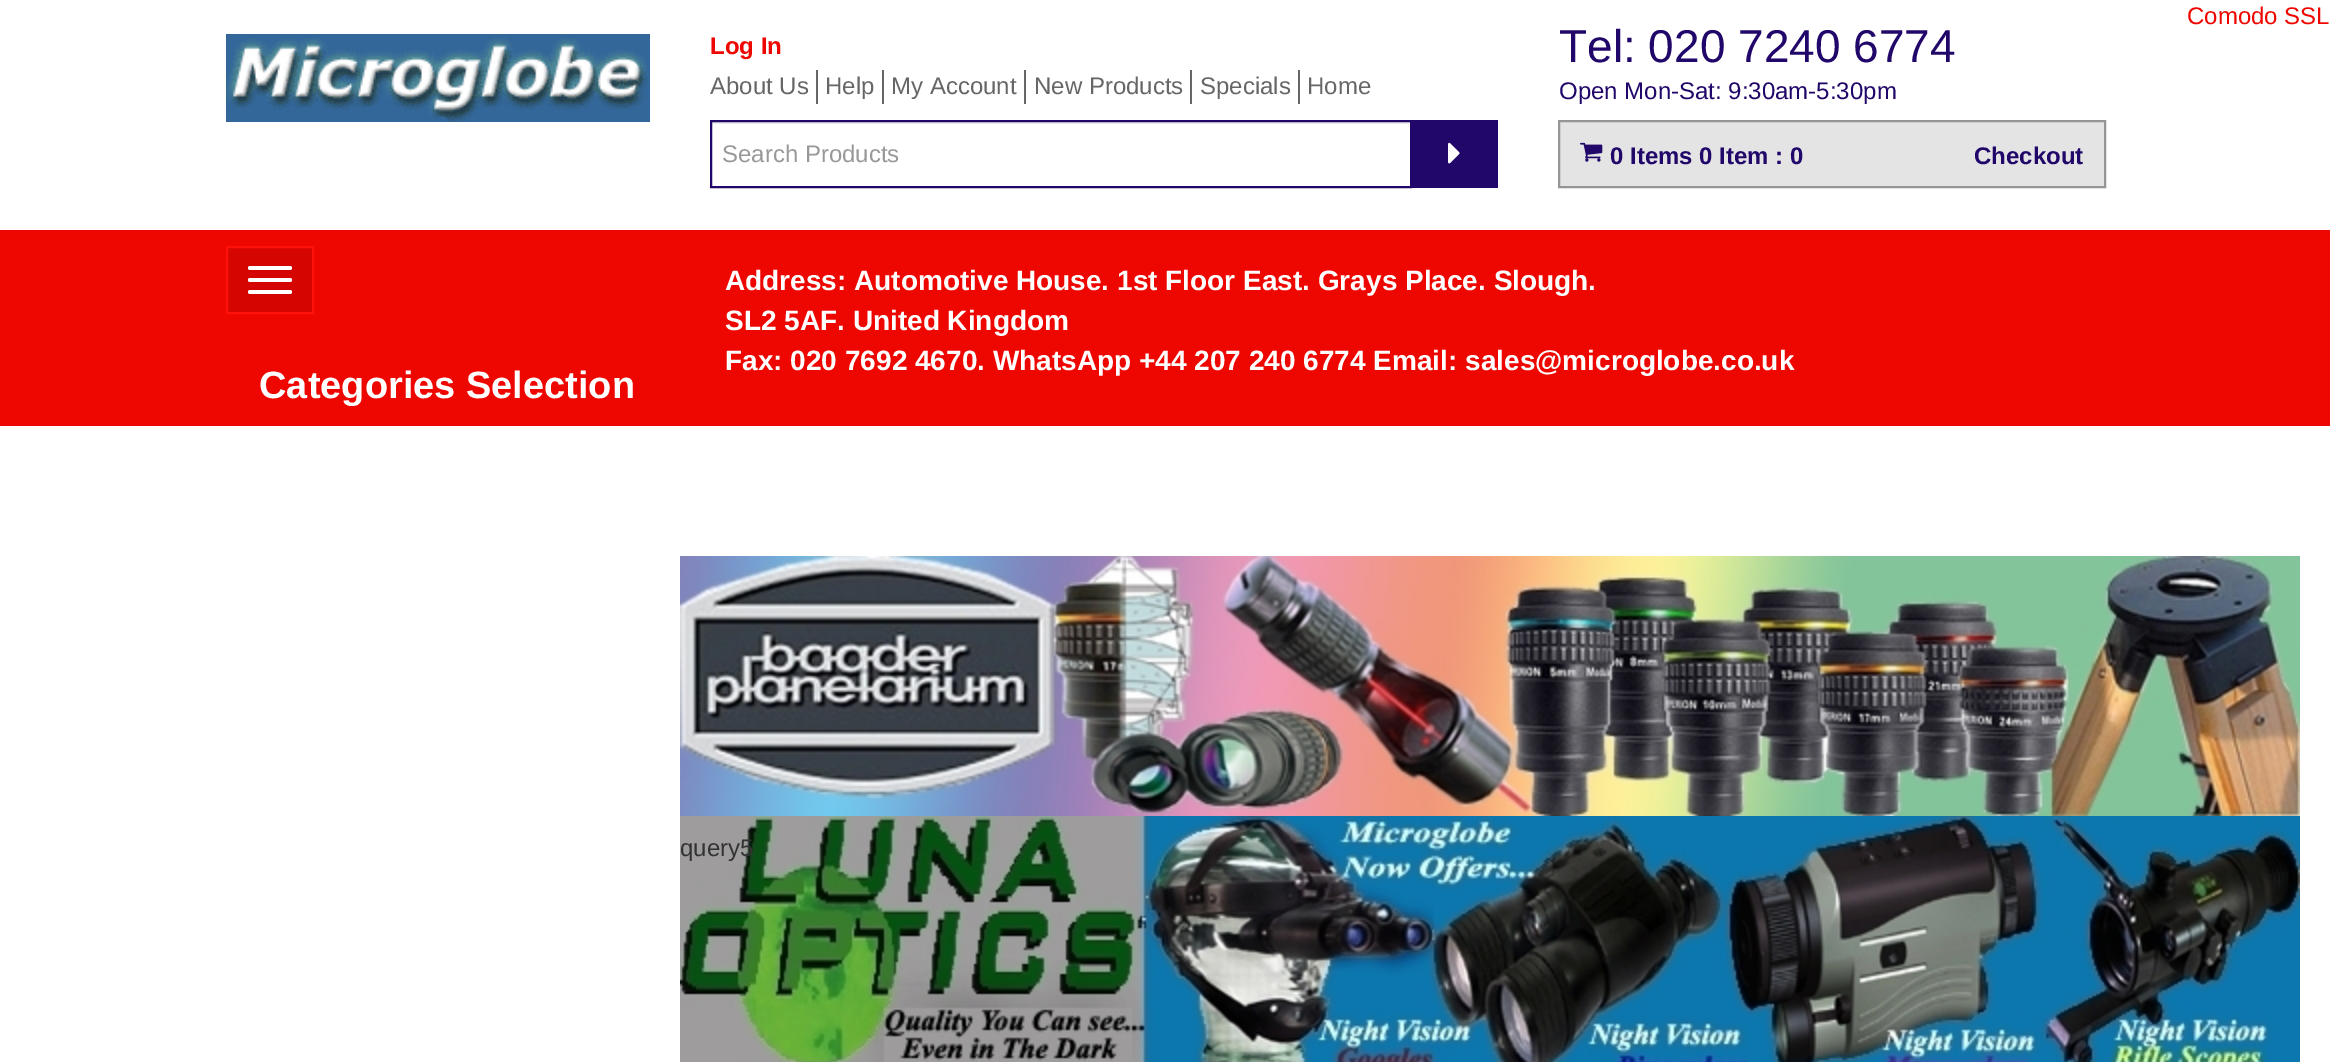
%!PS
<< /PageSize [2330 1062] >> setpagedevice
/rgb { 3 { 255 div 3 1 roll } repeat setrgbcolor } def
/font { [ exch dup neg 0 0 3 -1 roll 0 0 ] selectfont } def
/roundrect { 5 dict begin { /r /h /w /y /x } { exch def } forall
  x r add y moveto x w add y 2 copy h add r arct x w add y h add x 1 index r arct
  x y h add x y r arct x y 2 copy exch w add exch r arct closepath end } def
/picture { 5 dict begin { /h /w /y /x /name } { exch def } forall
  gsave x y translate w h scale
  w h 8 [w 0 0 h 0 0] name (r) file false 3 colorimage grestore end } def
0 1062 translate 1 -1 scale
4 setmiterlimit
255 255 255 rgb
0 0 2330 1062 rectfill
(img/1.rgb) 226 34 424 88 picture
[
  [816 70 2 34 102 102 102]
  [882 70 2 34 102 102 102]
  [1024 70 2 34 102 102 102]
  [1190 70 2 34 102 102 102]
  [1298 70 2 34 102 102 102]
  [712 122 698 2 236 236 236]
] { aload pop rgb rectfill } forall
33 7 106 rgb
2 setlinewidth
711 121 700 66 rectstroke
1412 120 86 68 rectfill
(img/2.rgb) 1448 142 12 22 picture
228 228 228 rgb
1559 121 moveto 2105 121 lineto 2105 187 lineto 1559 187 lineto closepath gsave fill grestore
149 149 149 rgb
stroke
(img/3.rgb) 1580 142 23 20 picture
238 7 1 rgb
0 230 2330 196 rectfill
213 6 1 rgb
227 247 moveto 313 247 lineto 313 313 lineto 227 313 lineto closepath gsave fill grestore
254 17 11 rgb
stroke
255 255 255 rgb
248 266 44 4 2 roundrect fill
248 278 44 4 2 roundrect fill
248 290 44 4 2 roundrect fill
(img/4.rgb) 680 556 1620 260 picture
(img/5.rgb) 680 816 1620 246 picture
/LiberationSans-Regular 24 font
238 7 1 rgb
2187 24 moveto (Comodo SSL) show
/LiberationSans-Bold 24 font
710 54 moveto (Log In) show
/LiberationSans-Regular 24 font
102 102 102 rgb
[
  [(About Us) 710 94]
  [(Help) 825 94]
  [(My Account) 891 94]
  [(New Products) 1034 94]
  [(Specials) 1200 94]
  [(Home) 1307 94]
] { aload pop moveto show } forall
/LiberationSans-Regular 46 font
33 7 106 rgb
1559 62 moveto (Tel: 020 7240 6774) show
/LiberationSans-Regular 24 font
1559 99 moveto (Open Mon-Sat: 9:30am-5:30pm) show
153 153 153 rgb
722 162 moveto (Search Products) show
/LiberationSans-Bold 24 font
33 7 106 rgb
1610 164 moveto (0 Items 0 Item : 0) show
1974 164 moveto (Checkout) show
/LiberationSans-Bold 28 font
255 255 255 rgb
[
  [(Address: Automotive House. 1st Floor East. Grays Place. Slough.) 725 290]
  [(SL2 5AF. United Kingdom) 725 330]
  [(Fax: 020 7692 4670. WhatsApp +44 207 240 6774 Email: sales@microglobe.co.uk) 725 370]
] { aload pop moveto show } forall
/LiberationSans-Bold 38 font
259 398 moveto (Categories Selection) show
/LiberationSans-Regular 24 font
51 51 51 rgb
680 856 moveto (query5) show
showpage
